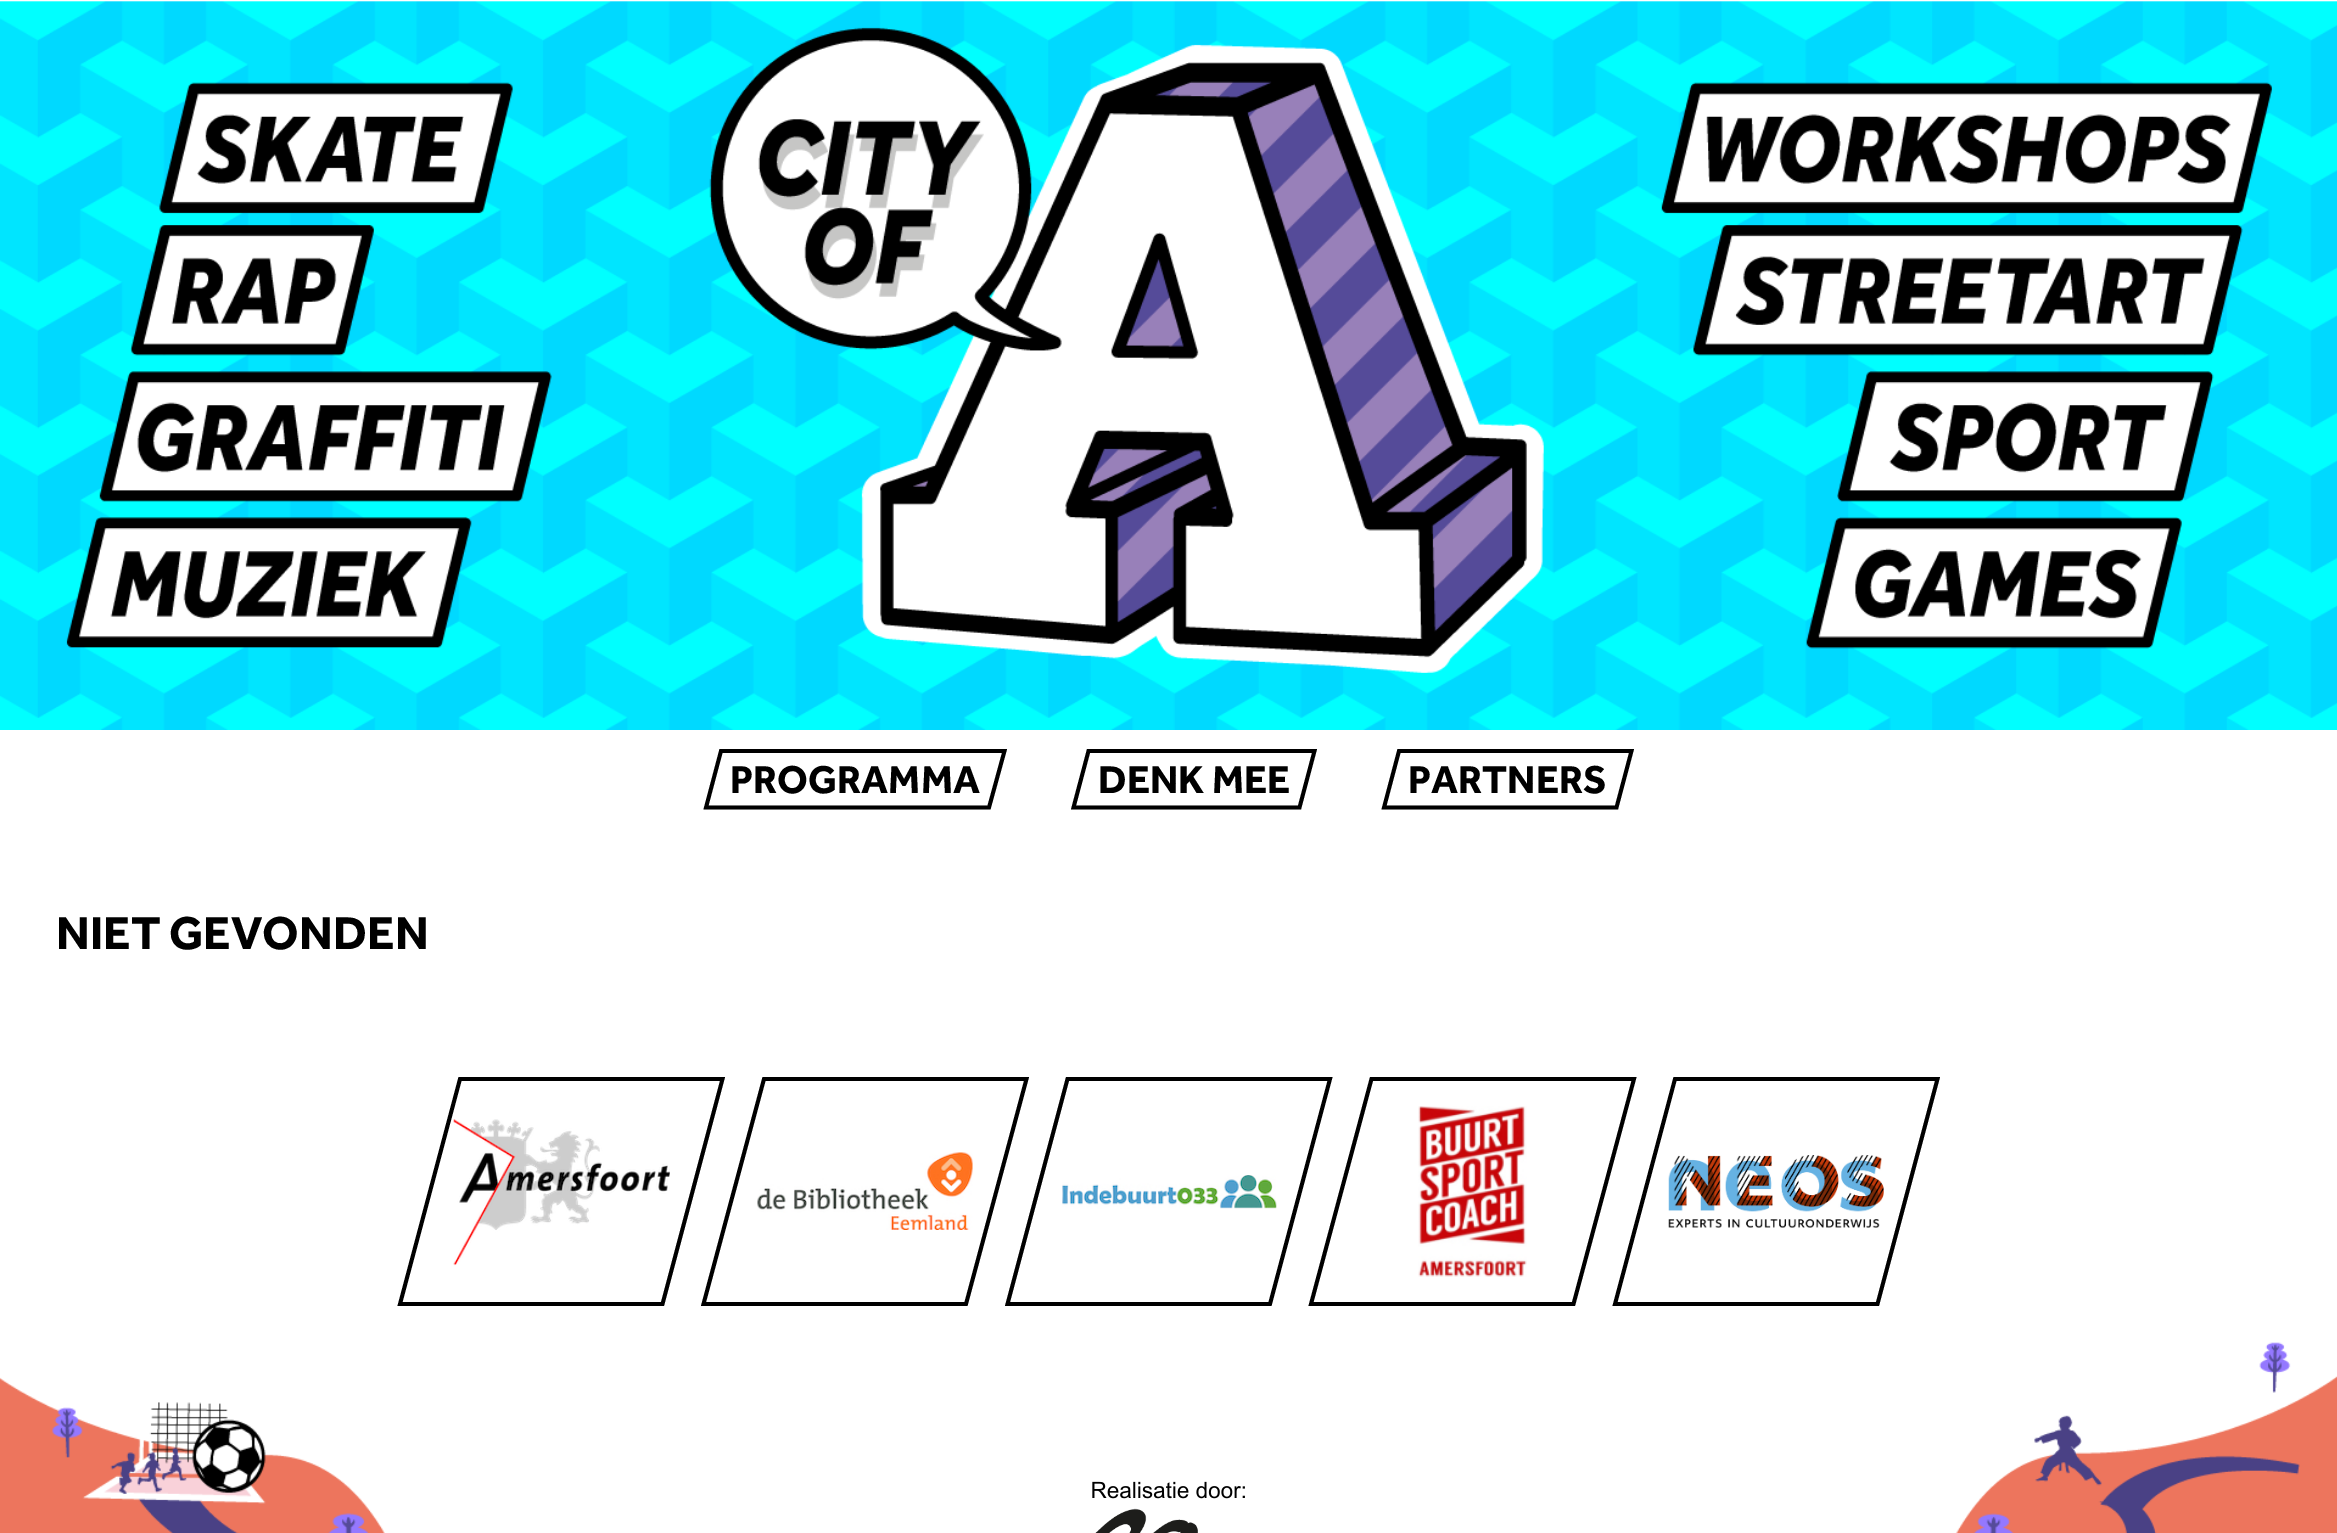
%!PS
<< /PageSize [2337 1533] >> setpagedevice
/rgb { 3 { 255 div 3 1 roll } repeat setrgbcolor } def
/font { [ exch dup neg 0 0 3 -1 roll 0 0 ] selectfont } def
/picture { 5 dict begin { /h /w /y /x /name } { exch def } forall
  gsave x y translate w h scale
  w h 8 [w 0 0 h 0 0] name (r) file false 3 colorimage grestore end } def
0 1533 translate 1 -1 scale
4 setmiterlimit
255 255 255 rgb
0 0 2337 1533 rectfill
(img/1.rgb) 0 1 2337 729 picture
0 0 0 rgb
3.8 setlinewidth
721 751 moveto 1004.5 751 lineto 989 807.5 lineto 706 807.5 lineto closepath stroke
1088.5 751 moveto 1314.5 751 lineto 1299.5 807.5 lineto 1073.5 807.5 lineto closepath stroke
1399 751 moveto 1631.5 751 lineto 1616.5 807.5 lineto 1384 807.5 lineto closepath stroke
(img/2.rgb) 453 1119 217 147 picture
460 1079 moveto 722.5 1079 lineto 662.5 1304 lineto 400 1304 lineto closepath stroke
(img/3.rgb) 757 1152 216 78 picture
764 1079 moveto 1026.5 1079 lineto 966 1304 lineto 703.5 1304 lineto closepath stroke
(img/4.rgb) 1062 1175 215 34 picture
1067.5 1079 moveto 1330 1079 lineto 1270 1304 lineto 1007.5 1304 lineto closepath stroke
(img/5.rgb) 1418 1106 109 171 picture
1371.5 1079 moveto 1634 1079 lineto 1573.5 1304 lineto 1311 1304 lineto closepath stroke
(img/6.rgb) 1668 1155 216 73 picture
1675 1079 moveto 1937.5 1079 lineto 1877.5 1304 lineto 1615 1304 lineto closepath stroke
(img/8.rgb) 1095 1508 103 25 picture
/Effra-Bold 40 font
[
  [(PROGRAMMA) 730 793]
  [(DENK MEE) 1098 793]
  [(PARTNERS) 1408 793]
] { aload pop moveto show } forall
/Effra-Bold 47.5 font
56 949 moveto (NIET GEVONDEN) show
/Arial-Italic 22.5 font
1091 1498 moveto (Realisatie door:) show
(img/7.rgb) 0 1342 2337 191 picture
showpage
